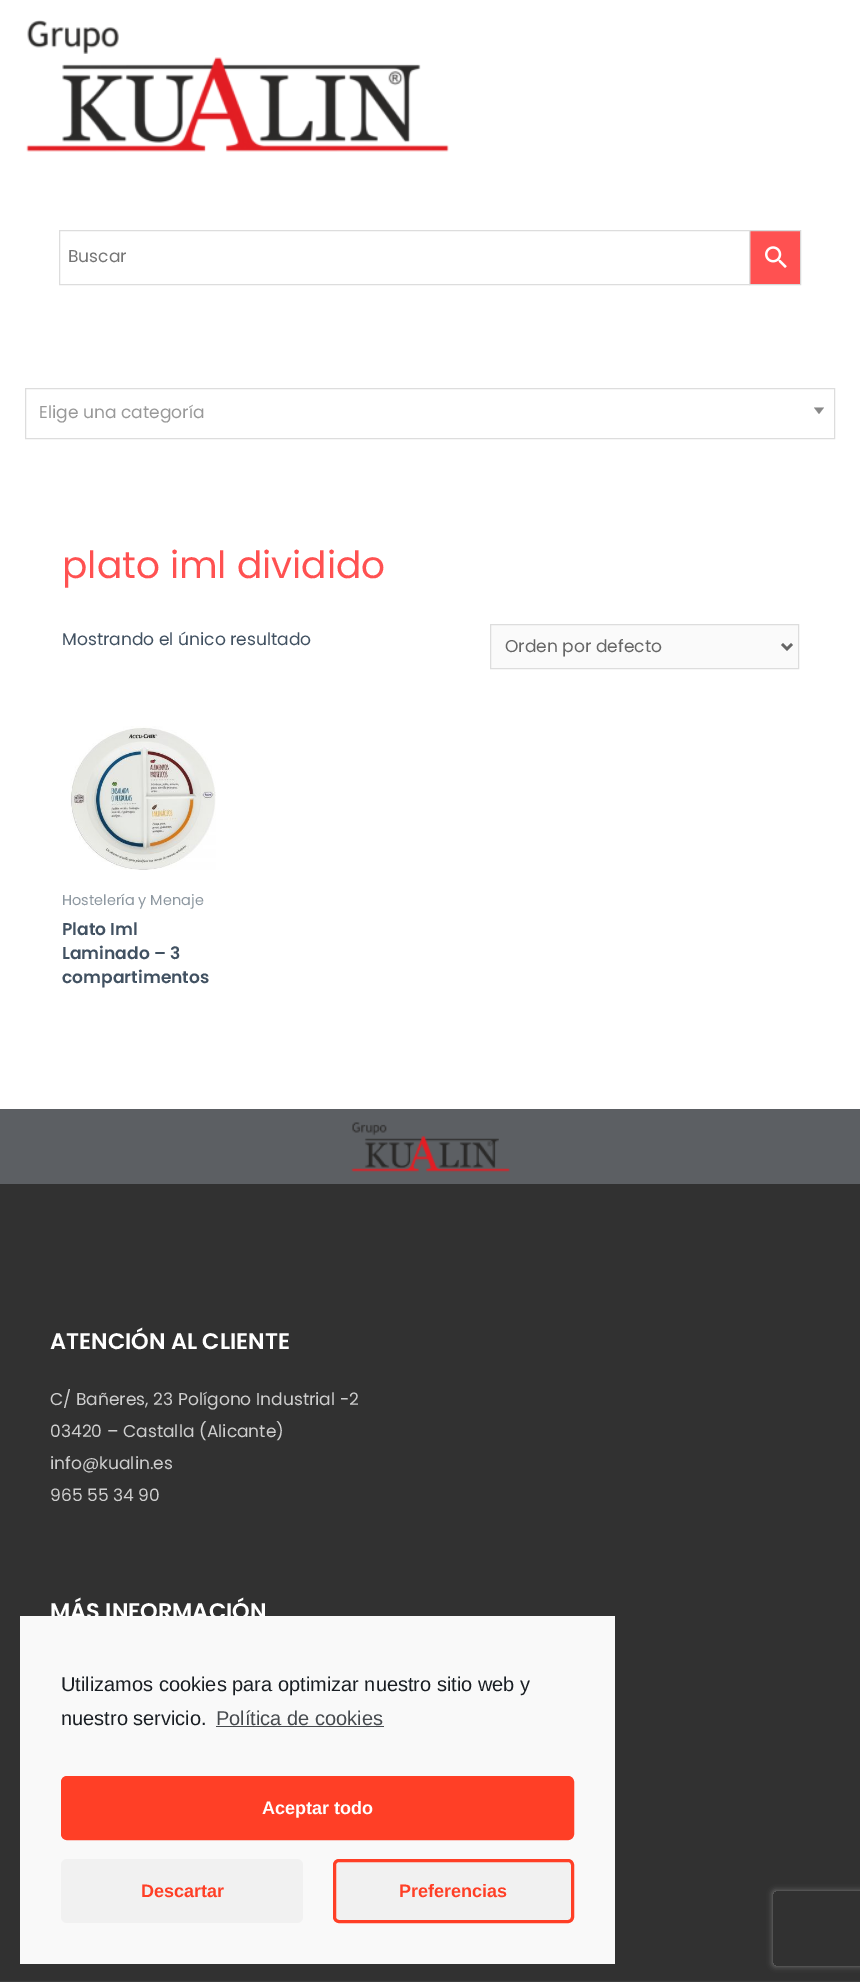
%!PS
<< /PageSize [860 1983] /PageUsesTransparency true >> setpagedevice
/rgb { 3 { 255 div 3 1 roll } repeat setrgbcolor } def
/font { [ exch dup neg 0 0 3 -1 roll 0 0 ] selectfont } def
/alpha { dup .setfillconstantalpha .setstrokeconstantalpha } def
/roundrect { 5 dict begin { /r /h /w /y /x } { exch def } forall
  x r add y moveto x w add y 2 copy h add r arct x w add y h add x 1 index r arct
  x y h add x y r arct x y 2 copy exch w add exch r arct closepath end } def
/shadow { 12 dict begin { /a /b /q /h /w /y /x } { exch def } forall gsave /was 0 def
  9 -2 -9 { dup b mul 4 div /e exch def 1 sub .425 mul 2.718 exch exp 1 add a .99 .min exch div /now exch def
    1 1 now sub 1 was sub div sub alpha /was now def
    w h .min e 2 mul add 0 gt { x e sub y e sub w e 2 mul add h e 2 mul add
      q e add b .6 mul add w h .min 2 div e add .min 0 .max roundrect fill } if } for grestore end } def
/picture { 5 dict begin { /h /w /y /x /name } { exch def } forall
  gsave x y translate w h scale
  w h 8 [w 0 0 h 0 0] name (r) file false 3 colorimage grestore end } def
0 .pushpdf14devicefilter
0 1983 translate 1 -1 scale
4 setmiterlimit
255 255 255 rgb
0 0 860 1983 rectfill
(img/1.rgb) 26 20 423 132 picture
255 81 81 rgb
749.5 230.5 moveto 800.5 230.5 lineto 800.5 284.5 lineto 749.5 284.5 lineto closepath gsave fill grestore
216 216 216 rgb
stroke
221 221 221 rgb
59.5 230.5 690 54 rectstroke
(img/2.rgb) 765 246 22 22 picture
25.5 388.5 809 50 rectstroke
136 136 136 rgb
814 407.5 moveto 824 407.5 lineto 819 414 lineto closepath fill
250 250 250 rgb
490.5 624.5 moveto 798.5 624.5 lineto 798.5 668.5 lineto 490.5 668.5 lineto closepath gsave fill grestore
221 221 221 rgb
stroke
102 102 102 rgb
2.5 setlinewidth
782 644 moveto 787 649 lineto 792 644 lineto stroke
(img/3.rgb) 70 726 146 144 picture
92 95 99 rgb
0 1109 860 75 rectfill
(img/4.rgb) 351 1122 159 50 picture
49 49 49 rgb
0 1184 860 797 rectfill
61 61 61 rgb
0 1981 860 1 rectfill
gsave
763 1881 moveto 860 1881 lineto 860 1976 lineto 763 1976 lineto closepath 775.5 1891 moveto 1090.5 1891 lineto 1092 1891 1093 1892 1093 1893.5 curveto 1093 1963.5 lineto 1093 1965 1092 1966 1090.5 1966 curveto 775.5 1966 lineto 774 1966 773 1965 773 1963.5 curveto 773 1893.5 lineto 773 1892 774 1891 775.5 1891 curveto closepath eoclip newpath
128 128 128 rgb
773 1891 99 75 2.5 3 1 shadow
grestore
/Poppins-Regular 17.1 font
117 117 117 rgb
68 262 moveto (Buscar) show
153 153 153 rgb
39 418 moveto (Elige una categoría) show
/Poppins-Regular 37.5 font
255 81 81 rgb
62 578 moveto (plato iml dividido) show
/Poppins-Regular 17.1 font
65 81 97 rgb
62 645 moveto (Mostrando el único resultado) show
102 102 102 rgb
505 652 moveto (Orden por defecto) show
/Poppins-Regular 14.5 font
141 151 160 rgb
62 905 moveto (Hostelería y Menaje) show
/Poppins-SemiBold 17.1 font
65 81 97 rgb
[
  [(Plato Iml) 62 935]
  [(Laminado – 3) 62 959]
  [(compartimentos) 62 983]
] { aload pop moveto show } forall
/Poppins-SemiBold 22.5 font
255 255 255 rgb
50 1349 moveto (ATENCIÓN AL CLIENTE) show
/Poppins-Regular 17.1 font
206 206 206 rgb
[
  [(C/ Bañeres, 23 Polígono Industrial -2) 50 1405]
  [(03420 – Castalla \(Alicante\)) 50 1437]
  [(info@kualin.es) 50 1469]
  [(965 55 34 90) 50 1501]
] { aload pop moveto show } forall
/Poppins-SemiBold 22.5 font
255 255 255 rgb
50 1619 moveto (MÁS INFORMACIÓN) show
249 249 249 rgb
20 1616 595 348 rectfill
/LiberationSans-Regular 20 font
25 30 35 rgb
61 1691 moveto (Utilizamos cookies para optimizar nuestro sitio web y) show
61 1725 moveto (nuestro servicio.) show
70 74 78 rgb
216 1725 moveto (Política de cookies) show
216 1726 168 1 rectfill
255 63 38 rgb
62.5 1777.5 510 61 4.5 roundrect gsave fill grestore
3 setlinewidth
stroke
/LiberationSans-Bold 18 font
255 255 255 rgb
262 1814 moveto (Aceptar todo) show
241 241 241 rgb
61 1859 242 64 6 roundrect fill
255 63 38 rgb
141 1897 moveto (Descartar) show
241 241 241 rgb
334.5 1860.5 238 61 4.5 roundrect gsave fill grestore
255 63 38 rgb
stroke
399 1897 moveto (Preferencias) show
.poppdf14devicefilter showpage
